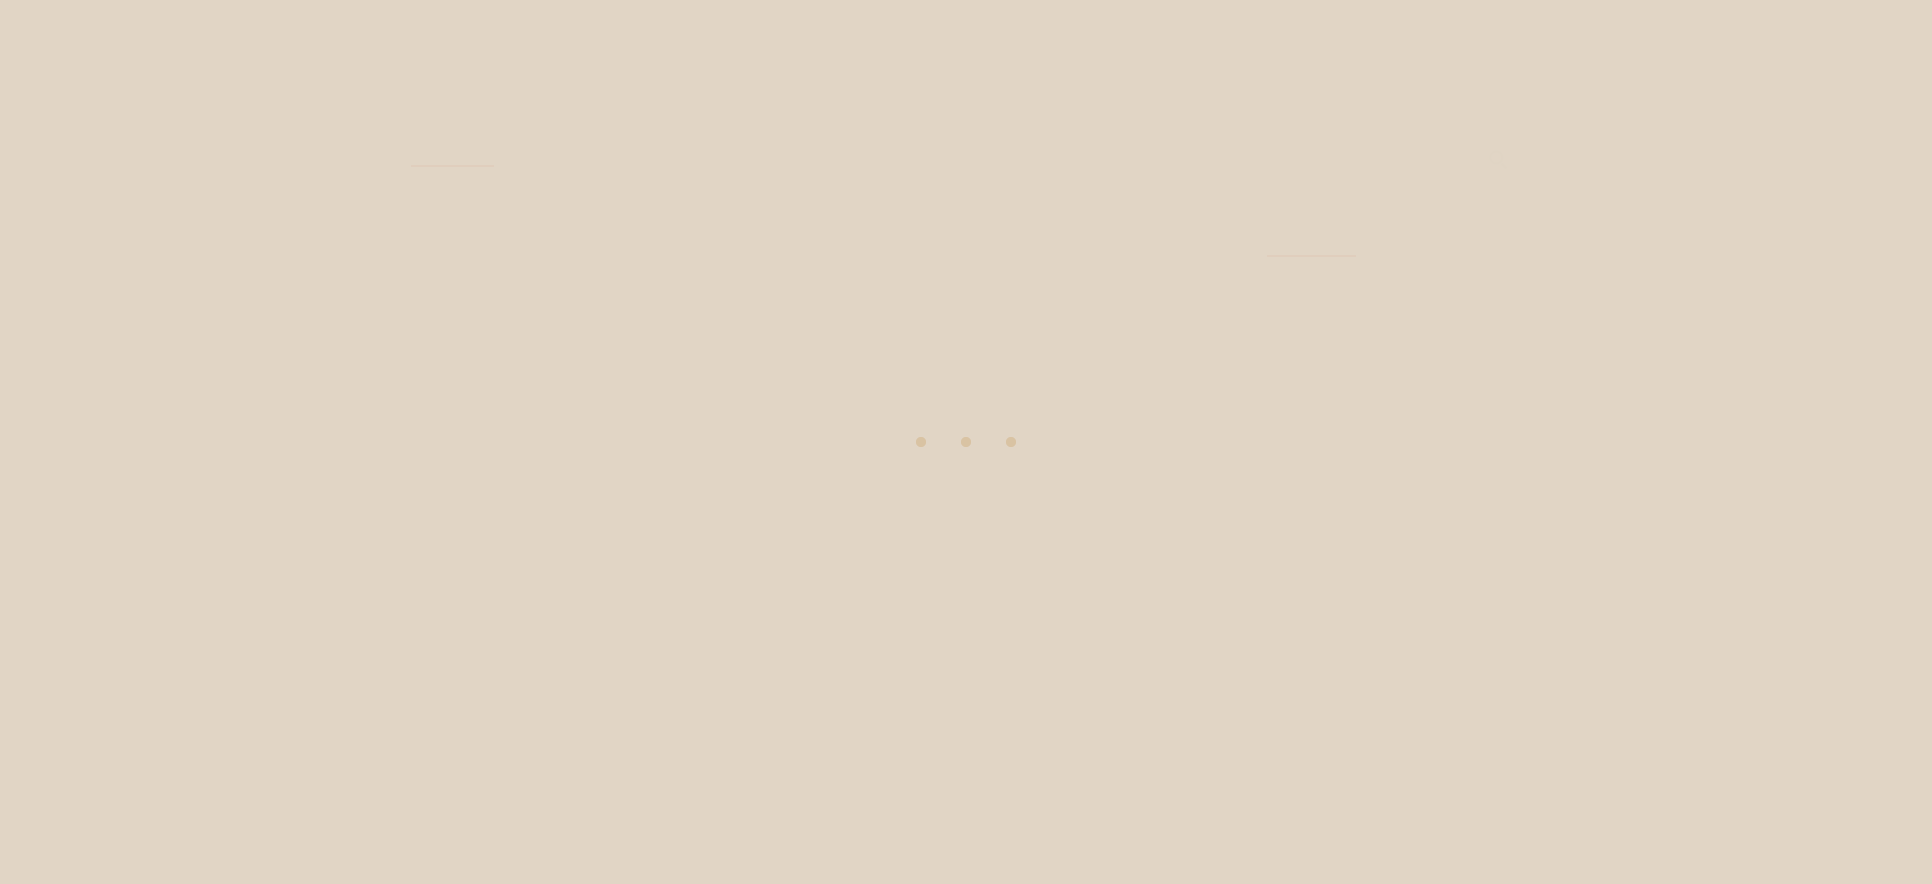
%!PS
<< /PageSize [1932 884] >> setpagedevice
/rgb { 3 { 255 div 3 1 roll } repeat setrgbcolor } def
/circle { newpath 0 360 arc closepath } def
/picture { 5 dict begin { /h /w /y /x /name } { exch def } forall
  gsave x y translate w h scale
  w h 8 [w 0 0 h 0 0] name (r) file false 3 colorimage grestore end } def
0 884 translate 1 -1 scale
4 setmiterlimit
225 213 197 rgb
0 0 1932 884 rectfill
224 206 189 rgb
411 165 83 2 rectfill
(img/1.rgb) 1489 150 18 19 picture
1267 255 89 2 rectfill
217 195 163 rgb
921 442 5 circle fill
966 442 5 circle fill
1011 442 5 circle fill
showpage
